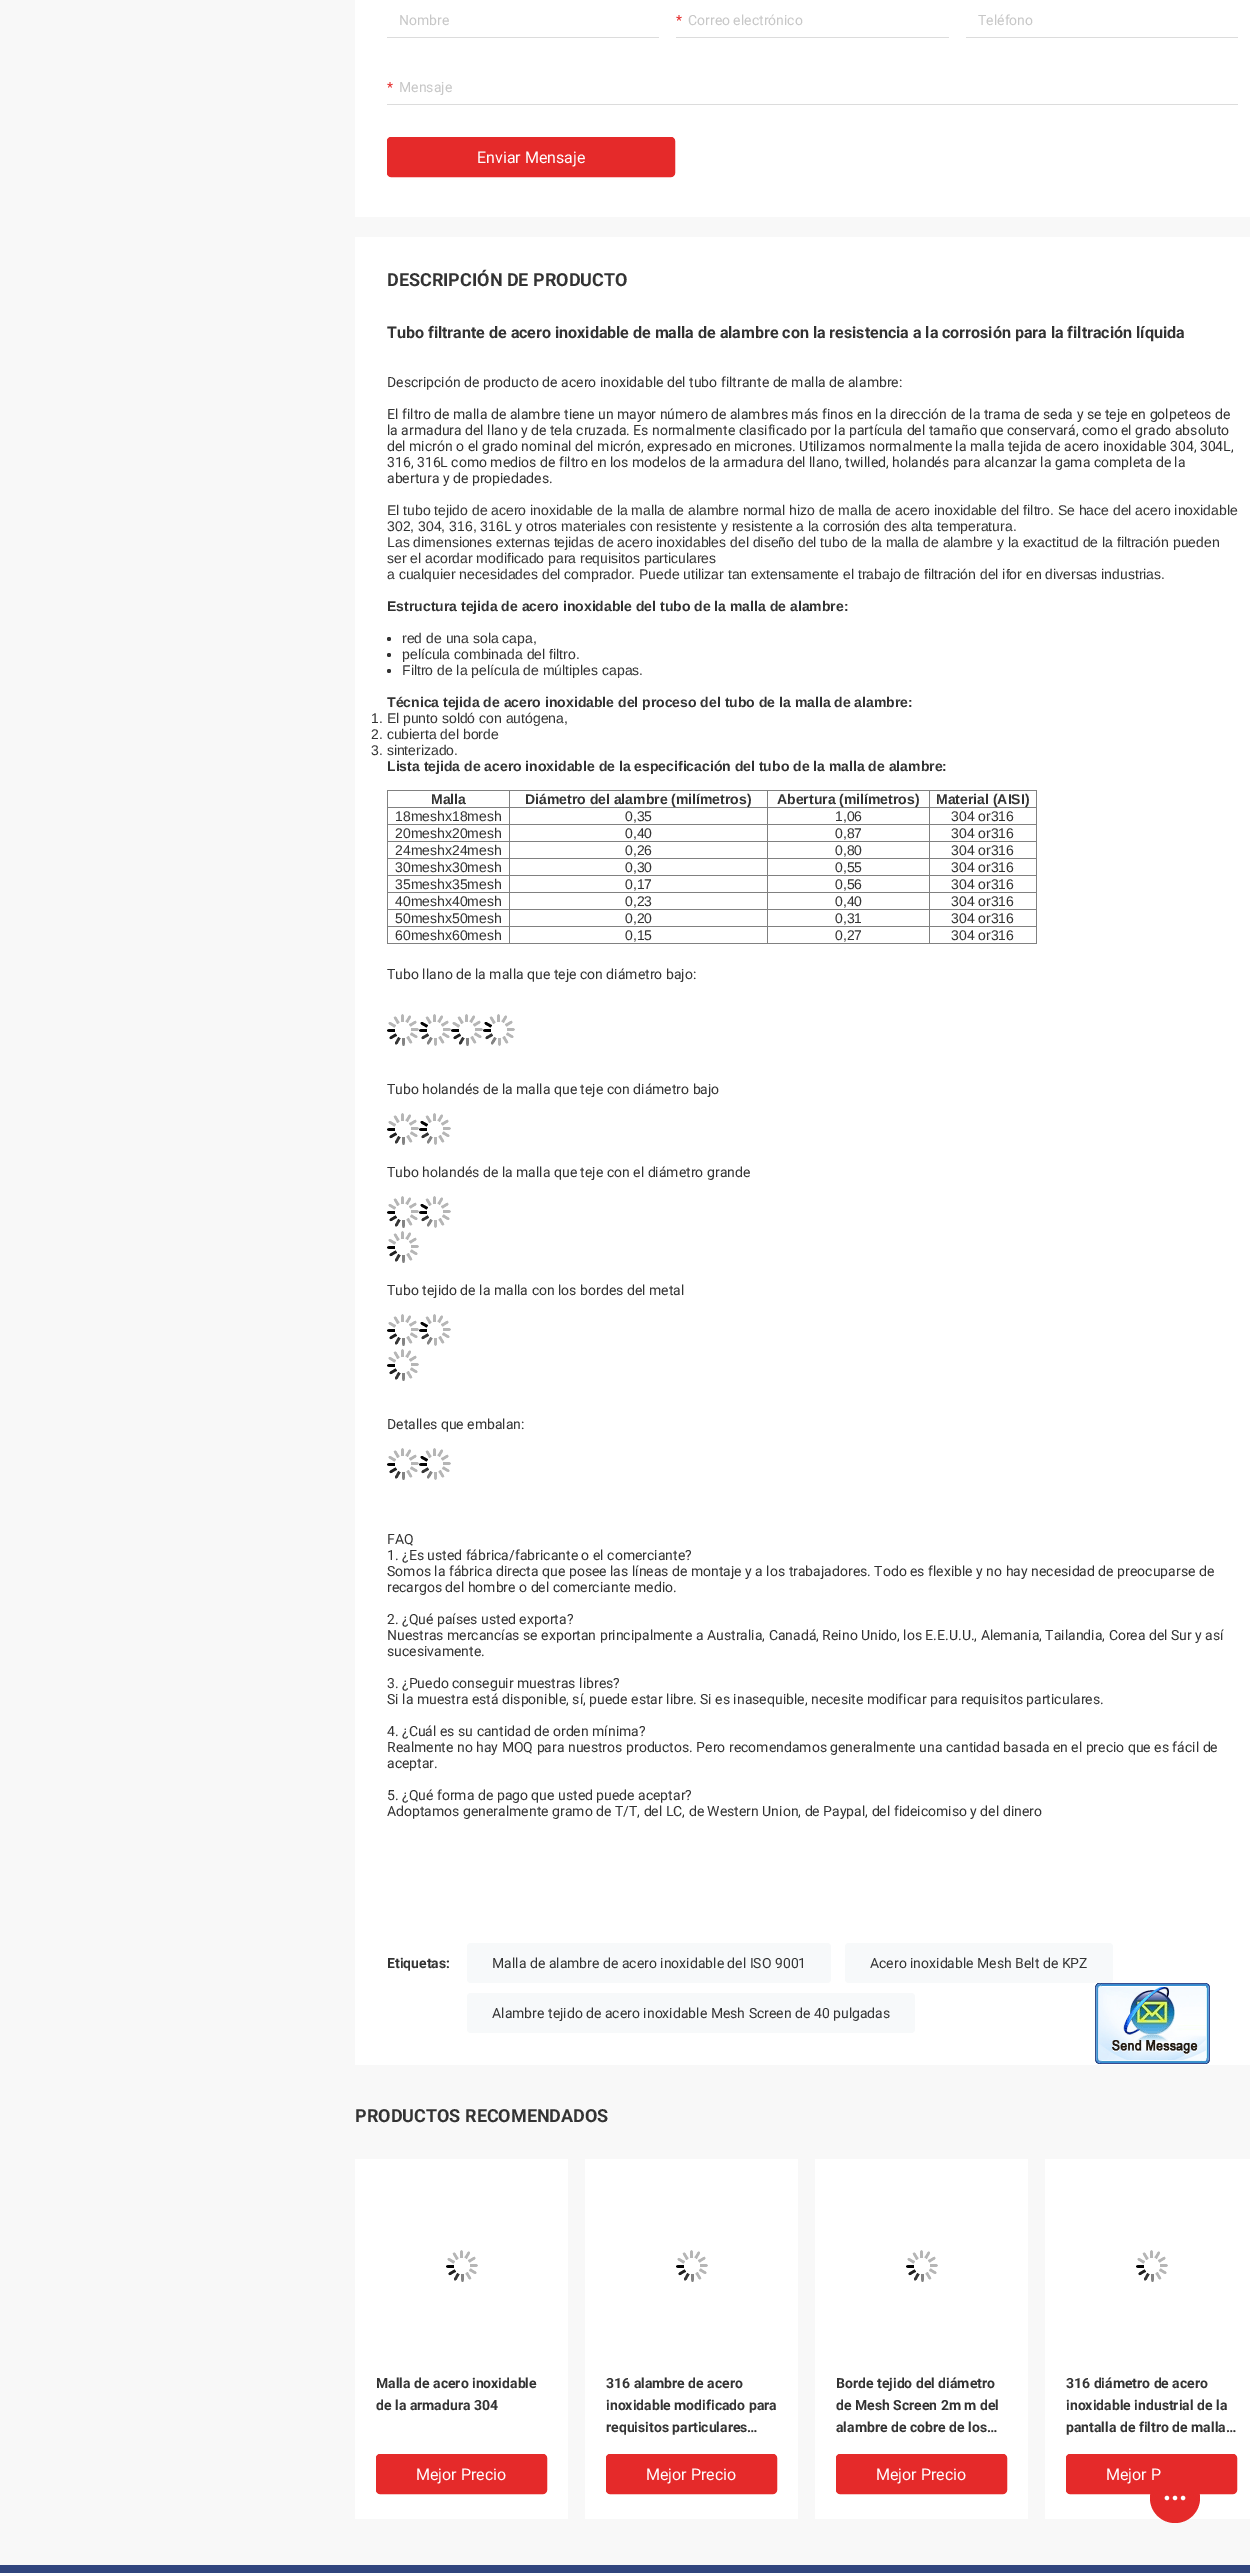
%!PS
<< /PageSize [1250 2573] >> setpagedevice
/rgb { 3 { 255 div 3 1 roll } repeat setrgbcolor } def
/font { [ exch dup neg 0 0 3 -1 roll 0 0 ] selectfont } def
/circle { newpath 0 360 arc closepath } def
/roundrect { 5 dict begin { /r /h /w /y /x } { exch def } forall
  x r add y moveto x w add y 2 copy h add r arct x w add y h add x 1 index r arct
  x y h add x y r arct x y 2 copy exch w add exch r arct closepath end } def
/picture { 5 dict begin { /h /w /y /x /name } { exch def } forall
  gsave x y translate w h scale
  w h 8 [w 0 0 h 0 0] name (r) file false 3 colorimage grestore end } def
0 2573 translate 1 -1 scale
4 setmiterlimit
248 248 248 rgb
0 0 1250 2573 rectfill
[
  [355 0 895 217 255 255 255]
  [387 37 272 1 220 220 220]
  [676 37 273 1 220 220 220]
  [966 37 272 1 220 220 220]
  [387 104 851 1 220 220 220]
] { aload pop rgb rectfill } forall
229 42 42 rgb
387.5 137.5 287 39 3.5 roundrect gsave fill grestore
stroke
255 255 255 rgb
355 237 895 1828 rectfill
51 51 51 rgb
389 639 2 circle fill
389 655 2 circle fill
389 671 2 circle fill
[
  [387 790 650 1 128 128 128]
  [1036 790 1 154 128 128 128]
  [387 943 650 1 128 128 128]
  [387 790 1 154 128 128 128]
  [929 807 108 1 128 128 128]
  [929 824 108 1 128 128 128]
  [929 841 108 1 128 128 128]
  [929 858 108 1 128 128 128]
  [929 875 108 1 128 128 128]
  [929 892 108 1 128 128 128]
  [929 909 108 1 128 128 128]
  [929 926 108 1 128 128 128]
  [929 926 1 18 128 128 128]
  [767 926 163 1 128 128 128]
  [929 909 1 18 128 128 128]
  [767 909 163 1 128 128 128]
  [929 892 1 18 128 128 128]
  [767 892 163 1 128 128 128]
  [929 875 1 18 128 128 128]
  [767 875 163 1 128 128 128]
  [929 858 1 18 128 128 128]
  [767 858 163 1 128 128 128]
  [929 841 1 18 128 128 128]
  [767 841 163 1 128 128 128]
  [929 824 1 18 128 128 128]
  [767 824 163 1 128 128 128]
  [929 807 1 18 128 128 128]
  [767 807 163 1 128 128 128]
  [767 926 1 18 128 128 128]
  [509 926 259 1 128 128 128]
  [767 909 1 18 128 128 128]
  [509 909 259 1 128 128 128]
  [767 892 1 18 128 128 128]
  [509 892 259 1 128 128 128]
  [767 875 1 18 128 128 128]
  [509 875 259 1 128 128 128]
  [767 858 1 18 128 128 128]
  [509 858 259 1 128 128 128]
  [767 841 1 18 128 128 128]
  [509 841 259 1 128 128 128]
  [767 824 1 18 128 128 128]
  [509 824 259 1 128 128 128]
  [767 807 1 18 128 128 128]
  [509 807 259 1 128 128 128]
  [509 926 1 18 128 128 128]
  [387 926 123 1 128 128 128]
  [509 909 1 18 128 128 128]
  [387 909 123 1 128 128 128]
  [509 892 1 18 128 128 128]
  [387 892 123 1 128 128 128]
  [509 875 1 18 128 128 128]
  [387 875 123 1 128 128 128]
  [509 858 1 18 128 128 128]
  [387 858 123 1 128 128 128]
  [509 841 1 18 128 128 128]
  [387 841 123 1 128 128 128]
  [509 824 1 18 128 128 128]
  [387 824 123 1 128 128 128]
  [509 807 1 18 128 128 128]
  [387 807 123 1 128 128 128]
  [509 790 1 18 128 128 128]
  [767 790 1 18 128 128 128]
  [929 790 1 18 128 128 128]
] { aload pop rgb rectfill } forall
(img/1.rgb) 387 1014 32 32 picture
(img/2.rgb) 419 1014 32 32 picture
(img/1.rgb) 451 1014 32 32 picture
(img/2.rgb) 483 1014 32 32 picture
(img/1.rgb) 387 1113 32 32 picture
(img/2.rgb) 419 1113 32 32 picture
(img/1.rgb) 387 1196 32 32 picture
(img/2.rgb) 419 1196 32 32 picture
(img/1.rgb) 387 1231 32 32 picture
(img/1.rgb) 387 1314 32 32 picture
(img/2.rgb) 419 1314 32 32 picture
(img/1.rgb) 387 1349 32 32 picture
(img/1.rgb) 387 1448 32 32 picture
(img/2.rgb) 419 1448 32 32 picture
247 249 250 rgb
467 1943 364 40 4 roundrect fill
845 1943 268 40 4 roundrect fill
467 1993 448 40 4 roundrect fill
255 255 255 rgb
355 2159 213 360 rectfill
(img/1.rgb) 446 2250 32 32 picture
229 42 42 rgb
376.5 2454.5 170 39 3.5 roundrect gsave fill grestore
stroke
255 255 255 rgb
585 2159 213 360 rectfill
(img/1.rgb) 676 2250 32 32 picture
229 42 42 rgb
606.5 2454.5 170 39 3.5 roundrect gsave fill grestore
stroke
255 255 255 rgb
815 2159 213 360 rectfill
(img/1.rgb) 906 2250 32 32 picture
229 42 42 rgb
836.5 2454.5 170 39 3.5 roundrect gsave fill grestore
stroke
255 255 255 rgb
1045 2159 205 360 rectfill
(img/1.rgb) 1136 2250 32 32 picture
229 42 42 rgb
1066.5 2454.5 170 39 3.5 roundrect gsave fill grestore
stroke
(img/3.rgb) 1095 1983 115 81 picture
49 69 126 rgb
0 2565 1250 8 rectfill
/Roboto-Regular 14 font
199 199 199 rgb
399 25 moveto (Nombre) show
229 42 42 rgb
676 25 moveto (*) show
199 199 199 rgb
688 25 moveto (Correo electrónico) show
978 25 moveto (Teléfono) show
229 42 42 rgb
387 92 moveto (*) show
199 199 199 rgb
399 92 moveto (Mensaje) show
/Roboto-Regular 16 font
255 255 255 rgb
477 163 moveto (Enviar Mensaje) show
/Roboto-Bold 18 font
51 51 51 rgb
387 286 moveto (DESCRIPCIÓN DE PRODUCTO) show
/Roboto-Bold 16 font
387 338 moveto (Tubo filtrante de acero inoxidable de malla de alambre con la resistencia a la corrosión para la filtración líquida) show
/Roboto-Regular 14 font
[
  [(Descripción de producto de acero inoxidable del tubo filtrante de malla de alambre:) 387 387]
  [(El filtro de malla de alambre tiene un mayor número de alambres más finos en la dirección de la trama de seda y se teje en golpeteos de) 387 419]
  [(la armadura del llano y de tela cruzada. Es normalmente clasificado por la partícula del tamaño que conservará, como el grado absoluto) 387 435]
  [(del micrón o el grado nominal del micrón, expresado en micrones. Utilizamos normalmente la malla tejida de acero inoxidable 304, 304L,) 387 451]
  [(316, 316L como medios de filtro en los modelos de la armadura del llano, twilled, holandés para alcanzar la gama completa de la) 387 467]
  [(abertura y de propiedades.) 387 483]
] { aload pop moveto show } forall
/LiberationSans-Regular 14 font
[
  [(El tubo tejido de acero inoxidable de la malla de alambre normal hizo de malla de acero inoxidable del filtro. Se hace del acero inoxidable) 387 515]
  [(302, 304, 316, 316L y otros materiales con resistente y resistente a la corrosión des alta temperatura.) 387 531]
  [(Las dimensiones externas tejidas de acero inoxidables del diseño del tubo de la malla de alambre y la exactitud de la filtración pueden) 387 547]
  [(ser el acordar modificado para requisitos particulares) 387 563]
  [(a cualquier necesidades del comprador. Puede utilizar tan extensamente el trabajo de filtración del ifor en diversas industrias.) 387 579]
] { aload pop moveto show } forall
/LiberationSans-Bold 14 font
387 611 moveto (Estructura tejida de acero inoxidable del tubo de la malla de alambre:) show
/LiberationSans-Regular 14 font
[
  [(red de una sola capa,) 402 643]
  [(película combinada del filtro.) 402 659]
  [(Filtro de la película de múltiples capas.) 402 675]
] { aload pop moveto show } forall
/LiberationSans-Bold 14 font
387 707 moveto (Técnica tejida de acero inoxidable del proceso del tubo de la malla de alambre:) show
/LiberationSans-Regular 14 font
[
  [(1. El punto soldó con autógena,) 371 723]
  [(2. cubierta del borde) 371 739]
  [(3. sinterizado.) 371 755]
] { aload pop moveto show } forall
/LiberationSans-Bold 14 font
[
  [(Lista tejida de acero inoxidable de la especificación del tubo de la malla de alambre:) 387 771]
  [(Malla) 431 804]
  [(Diámetro del alambre \(milímetros\)) 525 804]
  [(Abertura \(milímetros\)) 777 804]
  [(Material \(AISI\)) 936 804]
] { aload pop moveto show } forall
/LiberationSans-Regular 14 font
[
  [(18meshx18mesh) 395 821]
  [(0,35) 625 821]
  [(1,06) 835 821]
  [(304 or316) 951 821]
  [(20meshx20mesh) 395 838]
  [(0,40) 625 838]
  [(0,87) 835 838]
  [(304 or316) 951 838]
  [(24meshx24mesh) 395 855]
  [(0,26) 625 855]
  [(0,80) 835 855]
  [(304 or316) 951 855]
  [(30meshx30mesh) 395 872]
  [(0,30) 625 872]
  [(0,55) 835 872]
  [(304 or316) 951 872]
  [(35meshx35mesh) 395 889]
  [(0,17) 625 889]
  [(0,56) 835 889]
  [(304 or316) 951 889]
  [(40meshx40mesh) 395 906]
  [(0,23) 625 906]
  [(0,40) 835 906]
  [(304 or316) 951 906]
  [(50meshx50mesh) 395 923]
  [(0,20) 625 923]
  [(0,31) 835 923]
  [(304 or316) 951 923]
  [(60meshx60mesh) 395 940]
  [(0,15) 625 940]
  [(0,27) 835 940]
  [(304 or316) 951 940]
] { aload pop moveto show } forall
/Roboto-Regular 14 font
[
  [(Tubo llano de la malla que teje con diámetro bajo:) 387 979]
  [(Tubo holandés de la malla que teje con diámetro bajo) 387 1094]
  [(Tubo holandés de la malla que teje con el diámetro grande) 387 1177]
  [(Tubo tejido de la malla con los bordes del metal) 387 1295]
  [(Detalles que embalan:) 387 1429]
  [(FAQ) 387 1544]
  [(1. ¿Es usted fábrica/fabricante o el comerciante?) 387 1560]
  [(Somos la fábrica directa que posee las líneas de montaje y a los trabajadores. Todo es flexible y no hay necesidad de preocuparse de) 387 1576]
  [(recargos del hombre o del comerciante medio.) 387 1592]
  [(2. ¿Qué países usted exporta?) 387 1624]
  [(Nuestras mercancías se exportan principalmente a Australia, Canadá, Reino Unido, los E.E.U.U., Alemania, Tailandia, Corea del Sur y así) 387 1640]
  [(sucesivamente.) 387 1656]
  [(3. ¿Puedo conseguir muestras libres?) 387 1688]
  [(Si la muestra está disponible, sí, puede estar libre. Si es inasequible, necesite modificar para requisitos particulares.) 387 1704]
  [(4. ¿Cuál es su cantidad de orden mínima?) 387 1736]
  [(Realmente no hay MOQ para nuestros productos. Pero recomendamos generalmente una cantidad basada en el precio que es fácil de) 387 1752]
  [(aceptar.) 387 1768]
  [(5. ¿Qué forma de pago que usted puede aceptar?) 387 1800]
  [(Adoptamos generalmente gramo de T/T, del LC, de Western Union, de Paypal, del fideicomiso y del dinero) 387 1816]
] { aload pop moveto show } forall
/Roboto-Bold 14 font
387 1968 moveto (Etiquetas:) show
/Roboto-Regular 14 font
[
  [(Malla de alambre de acero inoxidable del ISO 9001) 492 1968]
  [(Acero inoxidable Mesh Belt de KPZ) 870 1968]
  [(Alambre tejido de acero inoxidable Mesh Screen de 40 pulgadas) 492 2018]
] { aload pop moveto show } forall
/Roboto-Bold 18 font
355 2122 moveto (PRODUCTOS RECOMENDADOS) show
/Roboto-Bold 14 font
376 2388 moveto (Malla de acero inoxidable) show
376 2410 moveto (de la armadura 304) show
/Roboto-Regular 16 font
255 255 255 rgb
416 2480 moveto (Mejor Precio) show
/Roboto-Bold 14 font
51 51 51 rgb
[
  [(316 alambre de acero) 606 2388]
  [(inoxidable modificado para) 606 2410]
  [(requisitos particulares…) 606 2432]
] { aload pop moveto show } forall
/Roboto-Regular 16 font
255 255 255 rgb
646 2480 moveto (Mejor Precio) show
/Roboto-Bold 14 font
51 51 51 rgb
[
  [(Borde tejido del diámetro) 836 2388]
  [(de Mesh Screen 2m m del) 836 2410]
  [(alambre de cobre de los…) 836 2432]
] { aload pop moveto show } forall
/Roboto-Regular 16 font
255 255 255 rgb
876 2480 moveto (Mejor Precio) show
/Roboto-Bold 14 font
51 51 51 rgb
[
  [(316 diámetro de acero) 1066 2388]
  [(inoxidable industrial de la) 1066 2410]
  [(pantalla de filtro de malla…) 1066 2432]
] { aload pop moveto show } forall
/Roboto-Regular 16 font
255 255 255 rgb
1106 2480 moveto (Mejor P) show
229 42 42 rgb
1175 2498 25 circle fill
(img/4.rgb) 1164 2495 22 6 picture
showpage
